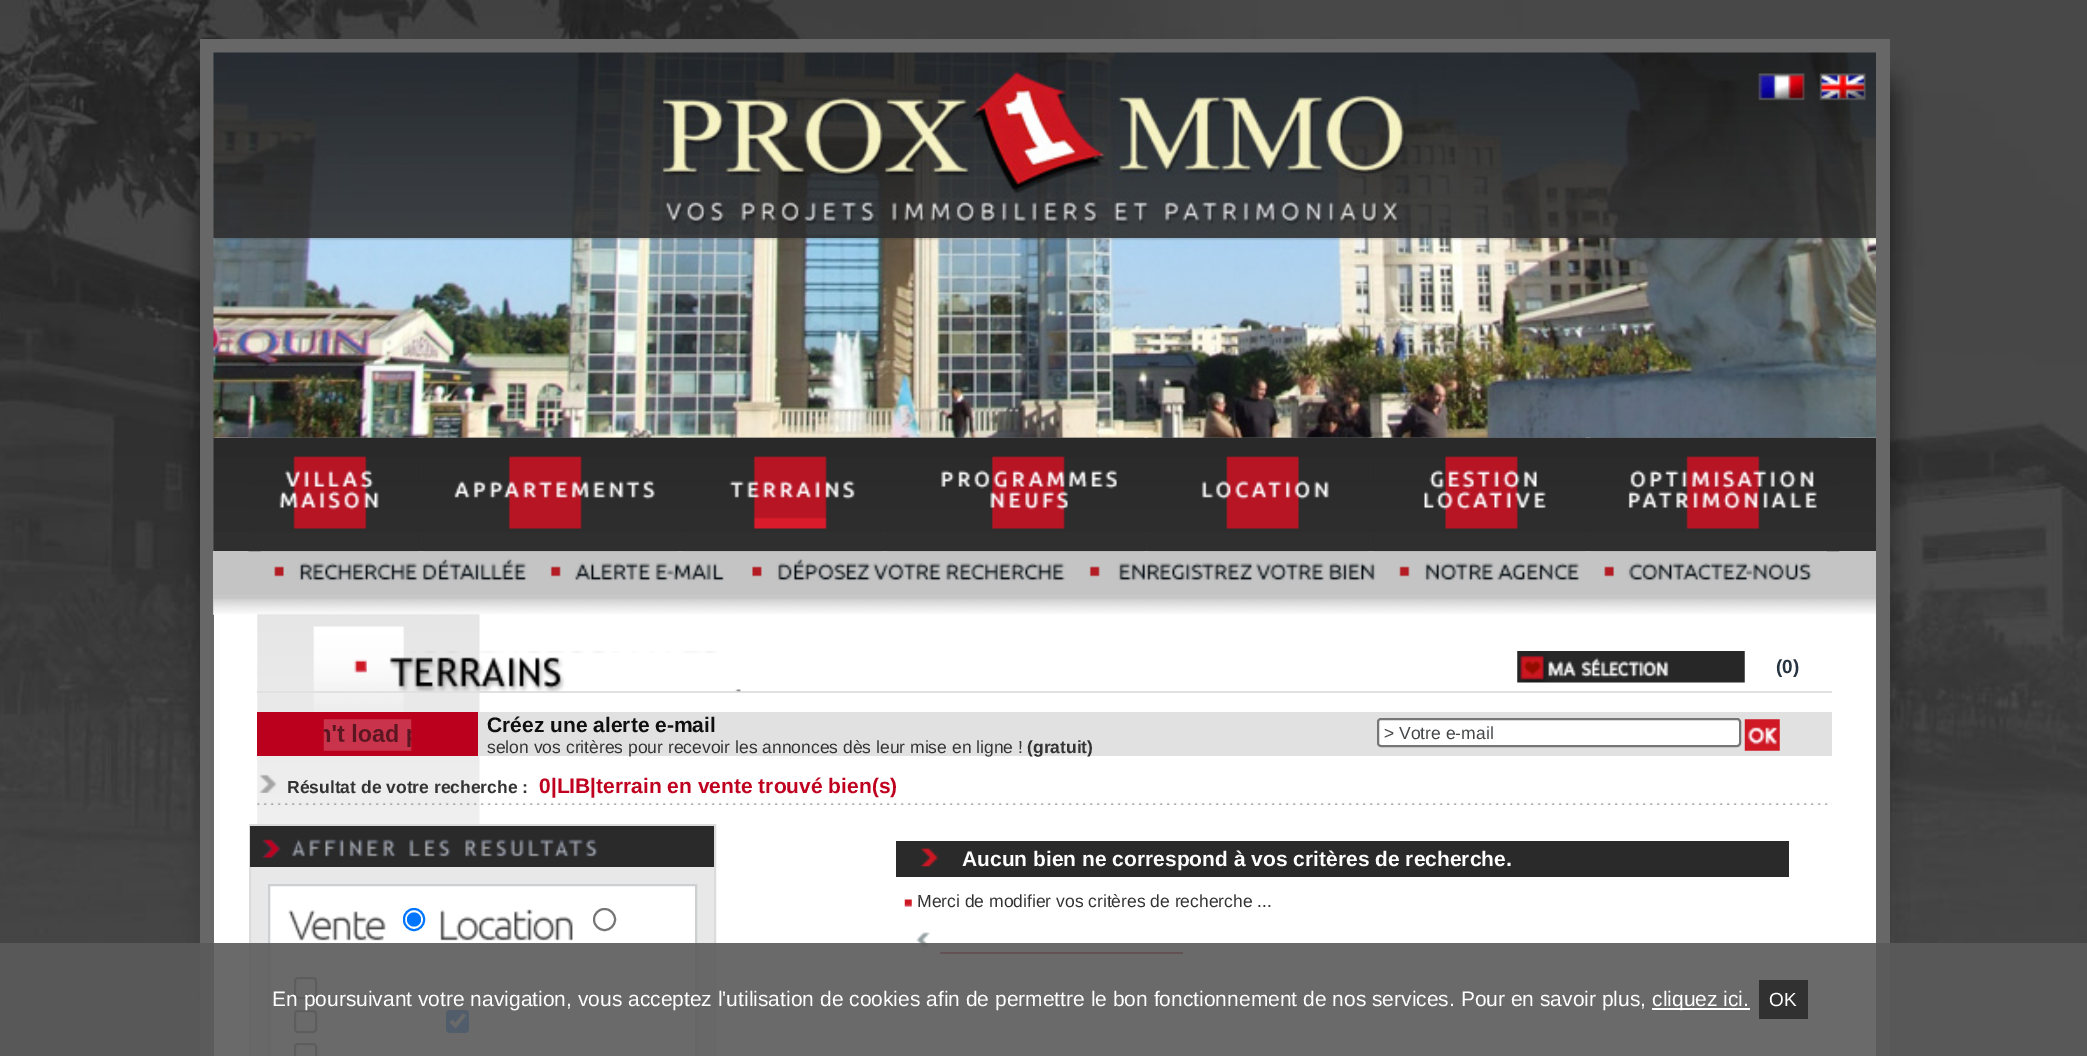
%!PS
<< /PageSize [2087 1056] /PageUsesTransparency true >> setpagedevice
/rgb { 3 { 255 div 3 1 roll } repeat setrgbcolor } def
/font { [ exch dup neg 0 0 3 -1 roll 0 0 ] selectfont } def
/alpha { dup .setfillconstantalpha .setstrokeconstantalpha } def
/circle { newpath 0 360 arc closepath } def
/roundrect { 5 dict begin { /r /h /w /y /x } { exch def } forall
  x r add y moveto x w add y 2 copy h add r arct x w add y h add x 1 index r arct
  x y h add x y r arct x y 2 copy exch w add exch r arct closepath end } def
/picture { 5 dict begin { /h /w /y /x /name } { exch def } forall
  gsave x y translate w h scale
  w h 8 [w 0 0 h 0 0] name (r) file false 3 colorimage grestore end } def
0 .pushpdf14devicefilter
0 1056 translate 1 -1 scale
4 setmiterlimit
255 255 255 rgb
0 0 2087 1056 rectfill
(img/1.rgb) 0 0 2087 1056 picture
[
  [214 39 1662 14 103 103 103]
  [1876 39 14 1017 103 103 103]
  [200 39 14 1017 103 103 103]
] { aload pop rgb rectfill } forall
(img/2.rgb) 213 52 1663 186 picture
(img/3.rgb) 1758 73 47 28 picture
(img/4.rgb) 1819 73 47 28 picture
(img/6.rgb) 213 437 1663 114 picture
196 196 196 rgb
213 551 1663 64 rectfill
(img/7.rgb) 248 437 171 115 picture
(img/8.rgb) 423 437 255 115 picture
(img/9.rgb) 682 437 200 115 picture
(img/10.rgb) 887 437 258 115 picture
(img/11.rgb) 1148 437 221 115 picture
(img/12.rgb) 1373 437 213 115 picture
(img/13.rgb) 1590 437 250 115 picture
(img/5.rgb) 213 238 1663 200 picture
(img/14.rgb) 260 551 279 30 picture
(img/15.rgb) 539 551 198 30 picture
(img/16.rgb) 737 551 338 30 picture
(img/17.rgb) 1074 551 307 30 picture
(img/18.rgb) 1381 551 210 30 picture
(img/19.rgb) 1591 551 236 30 picture
(img/20.rgb) 213 595 1663 20 picture
255 255 255 rgb
214 614 1662 442 rectfill
(img/21.rgb) 257 614 223 210 picture
226 225 225 rgb
257 691 1575 2 rectfill
(img/22.rgb) 389 651 352 41 picture
(img/23.rgb) 1517 651 228 32 picture
478 712 1354 44 rectfill
187 0 30 rgb
257 712 221 44 rectfill
(img/24.rgb) 323 719 89 32 picture
255 255 255 rgb
1378 719 362 27 3 roundrect gsave fill grestore
118 118 118 rgb
2 setlinewidth
stroke
(img/25.rgb) 1744 719 36 32 picture
(img/26.rgb) 259 774 18 19 picture
(img/27.rgb) 257 802 1575 3 picture
232 232 232 rgb
251 867 463 189 rectfill
220 220 220 rgb
250 825 465 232 rectstroke
42 42 42 rgb
250 826 464 41 rectfill
(img/28.rgb) 262 839 336 19 picture
255 255 255 rgb
269 885 moveto 696 885 lineto 696 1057 lineto 269 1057 lineto closepath gsave fill grestore
205 208 211 rgb
stroke
(img/29.rgb) 288 909 98 32 picture
0 117 255 rgb
404 909 20 21 10 roundrect stroke
414 919.5 7 circle fill
(img/30.rgb) 440 909 133 32 picture
118 118 118 rgb
604.5 919.5 10.5 circle stroke
295 978 21 20 3 roundrect stroke
295 1011 21 21 3 roundrect stroke
0 117 255 rgb
446 1010 23 23 4 roundrect fill
255 255 255 rgb
3.6 setlinewidth
451 1021 moveto 455.5 1025.5 lineto 464.5 1014.5 lineto stroke
118 118 118 rgb
2 setlinewidth
295 1044 21 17 3 roundrect stroke
42 42 42 rgb
896 841 893 36 rectfill
(img/31.rgb) 920 848 19 19 picture
(img/32.rgb) 904 899 8 8 picture
(img/33.rgb) 916 932 14 16 picture
[
  [940 952 243 2 191 1 31]
] { aload pop rgb rectfill } forall
0.9 alpha
[
  [0 943 2087 113 90 90 90]
] { aload pop rgb rectfill } forall
1 alpha
[
  [1652 1008 98 2 255 255 255]
  [1759 980 49 39 49 49 49]
] { aload pop rgb rectfill } forall
/LiberationSans-Bold 19 font
38 52 65 rgb
1776 673 moveto (\(0\)) show
/LiberationSans-Bold 21 font
15 15 15 rgb
487 732 moveto (Créez une alerte e-mail) show
/LiberationSans-Regular 17.5 font
51 51 51 rgb
487 753 moveto (selon vos critères pour recevoir les annonces dès leur mise en ligne !) show
/LiberationSans-Bold 17.5 font
1027 753 moveto (\(gratuit\)) show
/LiberationSans-Regular 17.5 font
68 69 71 rgb
1384 739 moveto (> Votre e-mail) show
/LiberationSans-Bold 17.5 font
51 51 51 rgb
287 793 moveto (Résultat de votre recherche :) show
/LiberationSans-Bold 21 font
191 1 31 rgb
539 793 moveto (0|LIB|terrain en vente trouvé bien\(s\)) show
255 255 255 rgb
962 866 moveto (Aucun bien ne correspond à vos critères de recherche.) show
/LiberationSans-Regular 17.5 font
51 51 51 rgb
917 907 moveto (Merci de modifier vos critères de recherche ...) show
/LiberationSans-Regular 21 font
255 255 255 rgb
272 1006 moveto (En poursuivant votre navigation, vous acceptez l'utilisation de cookies afin de permettre le bon fonctionnement de nos services. Pour en savoir plus,) show
1652 1006 moveto (cliquez ici.) show
/LiberationSans-Regular 19 font
1769 1006 moveto (OK) show
.poppdf14devicefilter showpage
